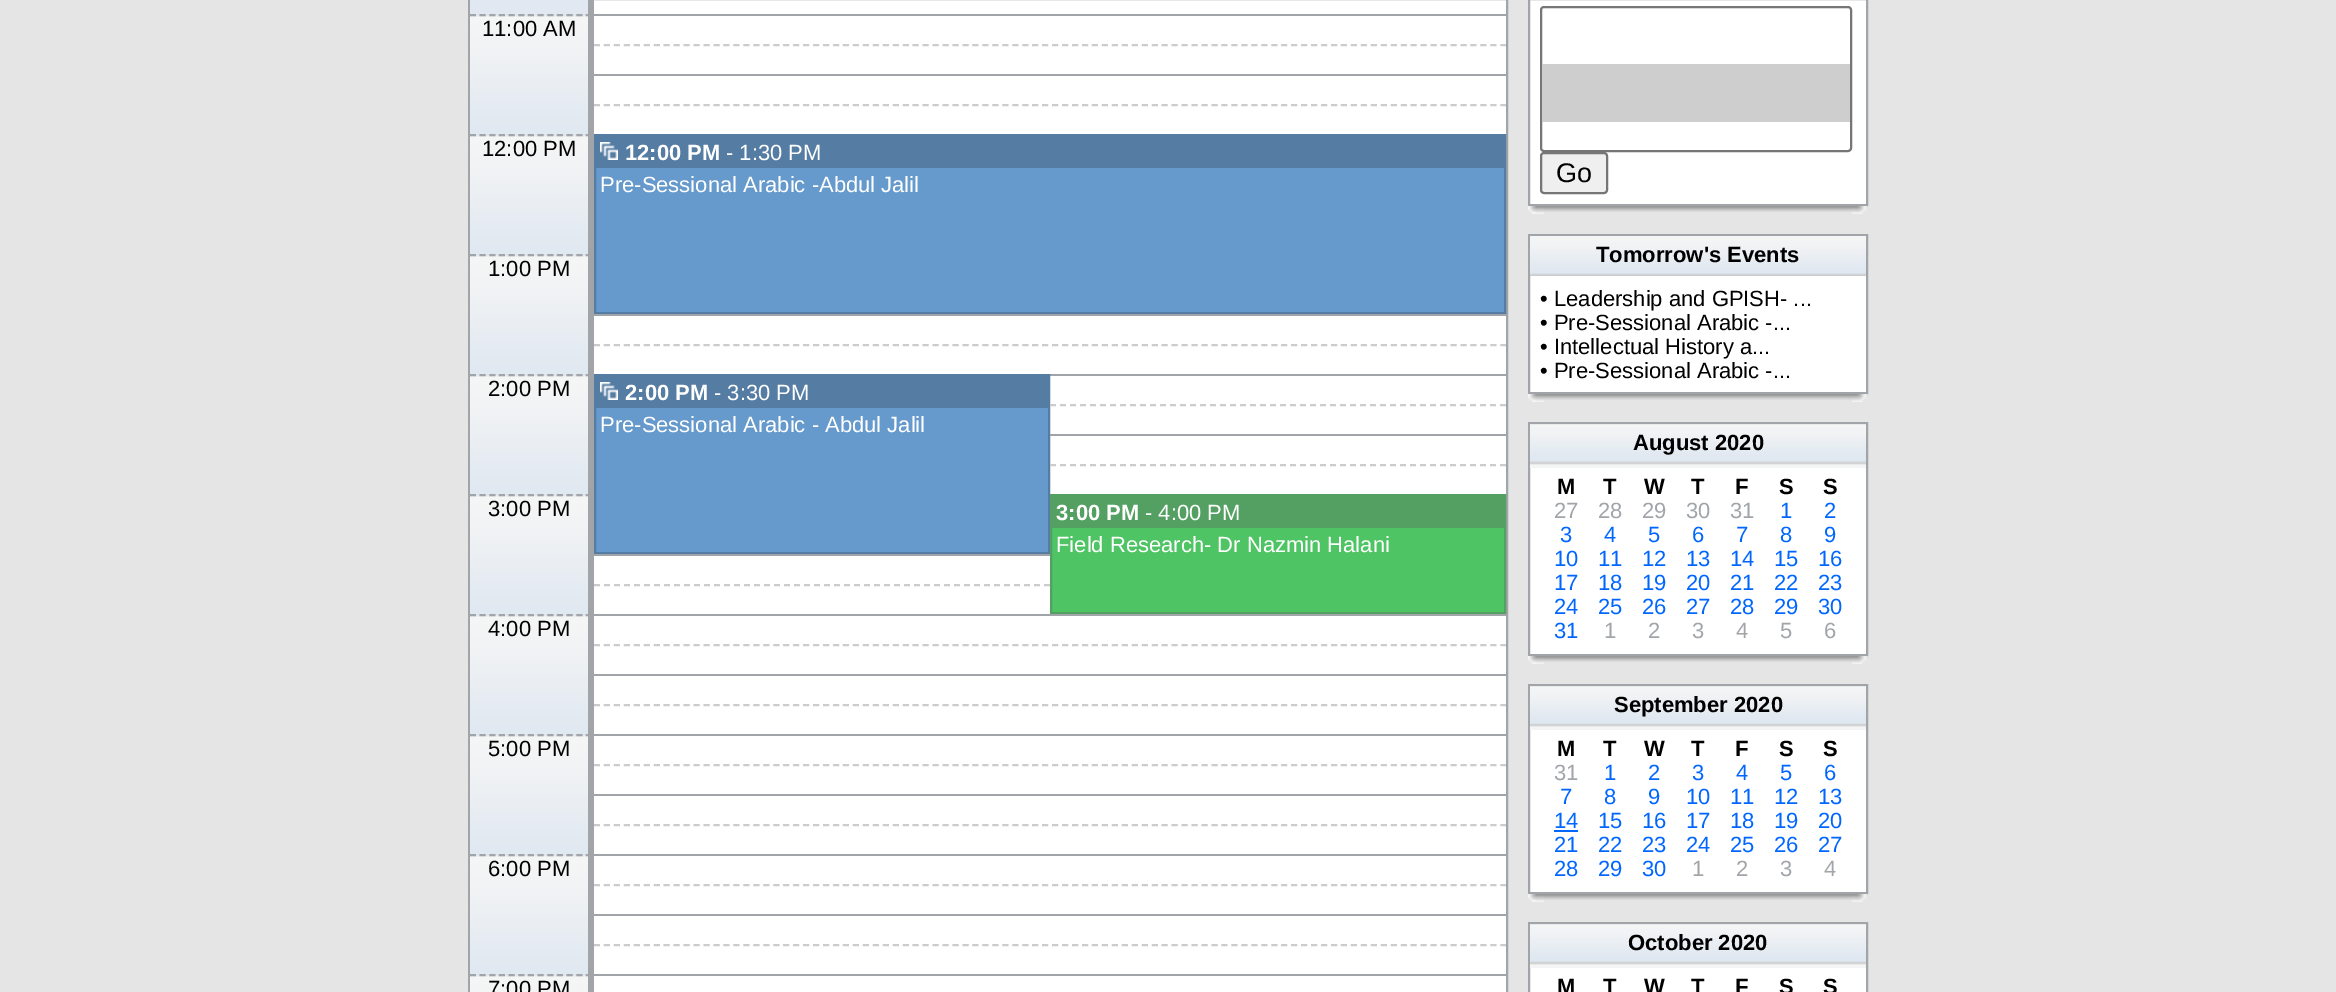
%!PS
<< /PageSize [2336 992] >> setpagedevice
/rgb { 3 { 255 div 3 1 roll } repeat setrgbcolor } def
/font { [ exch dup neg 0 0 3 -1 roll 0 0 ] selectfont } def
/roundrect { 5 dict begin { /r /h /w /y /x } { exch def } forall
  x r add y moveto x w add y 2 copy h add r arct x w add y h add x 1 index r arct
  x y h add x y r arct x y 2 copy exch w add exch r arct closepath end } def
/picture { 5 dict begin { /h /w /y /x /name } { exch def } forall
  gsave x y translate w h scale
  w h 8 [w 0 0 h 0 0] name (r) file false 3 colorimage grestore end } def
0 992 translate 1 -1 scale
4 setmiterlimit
229 229 229 rgb
0 0 2336 992 rectfill
255 255 255 rgb
594 0 912 992 rectfill
161 165 169 rgb
2 setlinewidth
469 -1 1038 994 rectstroke
[
  [470 0 118 14 225 232 241]
  [588 0 6 14 161 165 169]
  [592 14 2 960 161 165 169]
  [594 14 912 2 161 165 169]
] { aload pop rgb rectfill } forall
(img/1.rgb) 470 14 118 120 picture
[6 3.66] 0 setdash
470 15 moveto 592 15 lineto stroke
588 14 4 120 rectfill
204 204 204 rgb
[6 3.96] 0 setdash
594 45 moveto 1506 45 lineto stroke
161 165 169 rgb
594 74 912 2 rectfill
204 204 204 rgb
594 105 moveto 1506 105 lineto stroke
(img/1.rgb) 470 134 118 120 picture
161 165 169 rgb
[6 3.66] 0 setdash
470 135 moveto 592 135 lineto stroke
588 134 4 120 rectfill
102 153 204 rgb
596 168 908 144 rectfill
85 124 163 rgb
[] 0 setdash
595 135 910 178 rectstroke
596 136 908 32 rectfill
(img/2.rgb) 600 142 18 18 picture
(img/1.rgb) 470 254 118 120 picture
161 165 169 rgb
[6 3.66] 0 setdash
470 255 moveto 592 255 lineto stroke
588 254 4 120 rectfill
594 314 912 2 rectfill
204 204 204 rgb
[6 3.96] 0 setdash
594 345 moveto 1506 345 lineto stroke
161 165 169 rgb
1050 374 456 2 rectfill
(img/1.rgb) 470 374 118 120 picture
[6 3.66] 0 setdash
470 375 moveto 592 375 lineto stroke
588 374 4 120 rectfill
102 153 204 rgb
596 408 452 144 rectfill
85 124 163 rgb
[] 0 setdash
595 375 454 178 rectstroke
596 376 452 32 rectfill
(img/2.rgb) 600 382 18 18 picture
204 204 204 rgb
[6 4] 0 setdash
1050 405 moveto 1506 405 lineto stroke
161 165 169 rgb
1050 434 456 2 rectfill
204 204 204 rgb
1050 465 moveto 1506 465 lineto stroke
(img/1.rgb) 470 494 118 120 picture
161 165 169 rgb
[6 3.66] 0 setdash
470 495 moveto 592 495 lineto stroke
588 494 4 120 rectfill
79 196 100 rgb
1052 528 452 84 rectfill
83 160 98 rgb
[] 0 setdash
1051 495 454 118 rectstroke
1052 496 452 32 rectfill
161 165 169 rgb
594 554 456 2 rectfill
204 204 204 rgb
[6 4] 0 setdash
594 585 moveto 1050 585 lineto stroke
161 165 169 rgb
594 614 912 2 rectfill
(img/1.rgb) 470 614 118 120 picture
[6 3.66] 0 setdash
470 615 moveto 592 615 lineto stroke
588 614 4 120 rectfill
204 204 204 rgb
[6 3.96] 0 setdash
594 645 moveto 1506 645 lineto stroke
161 165 169 rgb
594 674 912 2 rectfill
204 204 204 rgb
594 705 moveto 1506 705 lineto stroke
161 165 169 rgb
594 734 912 2 rectfill
(img/1.rgb) 470 734 118 120 picture
[6 3.66] 0 setdash
470 735 moveto 592 735 lineto stroke
588 734 4 120 rectfill
204 204 204 rgb
[6 3.96] 0 setdash
594 765 moveto 1506 765 lineto stroke
161 165 169 rgb
594 794 912 2 rectfill
204 204 204 rgb
594 825 moveto 1506 825 lineto stroke
161 165 169 rgb
594 854 912 2 rectfill
(img/1.rgb) 470 854 118 120 picture
[6 3.66] 0 setdash
470 855 moveto 592 855 lineto stroke
588 854 4 120 rectfill
204 204 204 rgb
[6 3.96] 0 setdash
594 885 moveto 1506 885 lineto stroke
161 165 169 rgb
594 914 912 2 rectfill
204 204 204 rgb
594 945 moveto 1506 945 lineto stroke
161 165 169 rgb
594 974 912 2 rectfill
(img/3.rgb) 470 974 118 18 picture
[6 3.66] 0 setdash
470 975 moveto 592 975 lineto stroke
588 974 6 18 rectfill
255 255 255 rgb
1529 -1 moveto 1867 -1 lineto 1867 205 lineto 1529 205 lineto closepath gsave fill grestore
161 165 169 rgb
[] 0 setdash
stroke
118 118 118 rgb
1541 7 310 144 3 roundrect stroke
206 206 206 rgb
1542 64 308 58 rectfill
239 239 239 rgb
1541 153 66 40 3 roundrect gsave fill grestore
118 118 118 rgb
stroke
(img/4.rgb) 1528 206 16 8 picture
(img/5.rgb) 1544 206 308 6 picture
(img/6.rgb) 1852 206 15 8 picture
255 255 255 rgb
1530 276 336 116 rectfill
161 165 169 rgb
1529 235 338 158 rectstroke
(img/7.rgb) 1530 236 336 40 picture
(img/4.rgb) 1528 394 16 8 picture
(img/5.rgb) 1544 394 308 6 picture
(img/6.rgb) 1852 394 15 8 picture
255 255 255 rgb
1530 468 336 186 rectfill
161 165 169 rgb
1529 423 338 232 rectstroke
(img/8.rgb) 1530 424 336 44 picture
(img/4.rgb) 1528 656 16 8 picture
(img/5.rgb) 1544 656 308 6 picture
(img/6.rgb) 1852 656 15 8 picture
255 255 255 rgb
1530 730 336 162 rectfill
161 165 169 rgb
1529 685 338 208 rectstroke
(img/9.rgb) 1530 686 336 44 picture
0 102 255 rgb
1554 830 24 2 rectfill
(img/4.rgb) 1528 894 16 8 picture
(img/5.rgb) 1544 894 308 6 picture
(img/6.rgb) 1852 894 15 8 picture
255 255 255 rgb
1530 968 336 24 rectfill
161 165 169 rgb
1529 923 338 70 rectstroke
(img/8.rgb) 1530 924 336 44 picture
/LiberationSans-Regular 22 font
0 0 0 rgb
482 36 moveto (11:00 AM) show
482 156 moveto (12:00 PM) show
/LiberationSans-Bold 22 font
255 255 255 rgb
625 160 moveto (12:00 PM) show
/LiberationSans-Regular 22 font
726 160 moveto (- 1:30 PM) show
600 192 moveto (Pre-Sessional Arabic -Abdul Jalil) show
0 0 0 rgb
488 276 moveto (1:00 PM) show
488 396 moveto (2:00 PM) show
/LiberationSans-Bold 22 font
255 255 255 rgb
625 400 moveto (2:00 PM) show
/LiberationSans-Regular 22 font
714 400 moveto (- 3:30 PM) show
600 432 moveto (Pre-Sessional Arabic - Abdul Jalil) show
0 0 0 rgb
488 516 moveto (3:00 PM) show
/LiberationSans-Bold 22 font
255 255 255 rgb
1056 520 moveto (3:00 PM) show
/LiberationSans-Regular 22 font
1145 520 moveto (- 4:00 PM) show
1056 552 moveto (Field Research- Dr Nazmin Halani) show
0 0 0 rgb
[
  [(4:00 PM) 488 636]
  [(5:00 PM) 488 756]
  [(6:00 PM) 488 876]
  [(7:00 PM) 488 996]
] { aload pop moveto show } forall
/LiberationSans-Regular 27 font
1556 182 moveto (Go) show
/LiberationSans-Bold 22 font
1596 262 moveto (Tomorrow's Events) show
/LiberationSans-Regular 22 font
[
  [(• Leadership and GPISH- ...) 1540 306]
  [(• Pre-Sessional Arabic -...) 1540 330]
  [(• Intellectual History a...) 1540 354]
  [(• Pre-Sessional Arabic -...) 1540 378]
] { aload pop moveto show } forall
/LiberationSans-Bold 22 font
[
  [(August 2020) 1633 450]
  [(M) 1557 494]
  [(T) 1603 494]
  [(W) 1644 494]
  [(T) 1691 494]
  [(F) 1735 494]
  [(S) 1779 494]
  [(S) 1823 494]
] { aload pop moveto show } forall
/LiberationSans-Regular 22 font
161 165 169 rgb
[
  [(27) 1554 518]
  [(28) 1598 518]
  [(29) 1642 518]
  [(30) 1686 518]
  [(31) 1730 518]
] { aload pop moveto show } forall
0 102 255 rgb
[
  [(1) 1780 518]
  [(2) 1824 518]
  [(3) 1560 542]
  [(4) 1604 542]
  [(5) 1648 542]
  [(6) 1692 542]
  [(7) 1736 542]
  [(8) 1780 542]
  [(9) 1824 542]
  [(10) 1554 566]
  [(11) 1598 566]
  [(12) 1642 566]
  [(13) 1686 566]
  [(14) 1730 566]
  [(15) 1774 566]
  [(16) 1818 566]
  [(17) 1554 590]
  [(18) 1598 590]
  [(19) 1642 590]
  [(20) 1686 590]
  [(21) 1730 590]
  [(22) 1774 590]
  [(23) 1818 590]
  [(24) 1554 614]
  [(25) 1598 614]
  [(26) 1642 614]
  [(27) 1686 614]
  [(28) 1730 614]
  [(29) 1774 614]
  [(30) 1818 614]
  [(31) 1554 638]
] { aload pop moveto show } forall
161 165 169 rgb
[
  [(1) 1604 638]
  [(2) 1648 638]
  [(3) 1692 638]
  [(4) 1736 638]
  [(5) 1780 638]
  [(6) 1824 638]
] { aload pop moveto show } forall
/LiberationSans-Bold 22 font
0 0 0 rgb
[
  [(September 2020) 1614 712]
  [(M) 1557 756]
  [(T) 1603 756]
  [(W) 1644 756]
  [(T) 1691 756]
  [(F) 1735 756]
  [(S) 1779 756]
  [(S) 1823 756]
] { aload pop moveto show } forall
/LiberationSans-Regular 22 font
161 165 169 rgb
1554 780 moveto (31) show
0 102 255 rgb
[
  [(1) 1604 780]
  [(2) 1648 780]
  [(3) 1692 780]
  [(4) 1736 780]
  [(5) 1780 780]
  [(6) 1824 780]
  [(7) 1560 804]
  [(8) 1604 804]
  [(9) 1648 804]
  [(10) 1686 804]
  [(11) 1730 804]
  [(12) 1774 804]
  [(13) 1818 804]
  [(14) 1554 828]
  [(15) 1598 828]
  [(16) 1642 828]
  [(17) 1686 828]
  [(18) 1730 828]
  [(19) 1774 828]
  [(20) 1818 828]
  [(21) 1554 852]
  [(22) 1598 852]
  [(23) 1642 852]
  [(24) 1686 852]
  [(25) 1730 852]
  [(26) 1774 852]
  [(27) 1818 852]
  [(28) 1554 876]
  [(29) 1598 876]
  [(30) 1642 876]
] { aload pop moveto show } forall
161 165 169 rgb
[
  [(1) 1692 876]
  [(2) 1736 876]
  [(3) 1780 876]
  [(4) 1824 876]
] { aload pop moveto show } forall
/LiberationSans-Bold 22 font
0 0 0 rgb
[
  [(October 2020) 1628 950]
  [(M) 1557 994]
  [(T) 1603 994]
  [(W) 1644 994]
  [(T) 1691 994]
  [(F) 1735 994]
  [(S) 1779 994]
  [(S) 1823 994]
] { aload pop moveto show } forall
showpage
